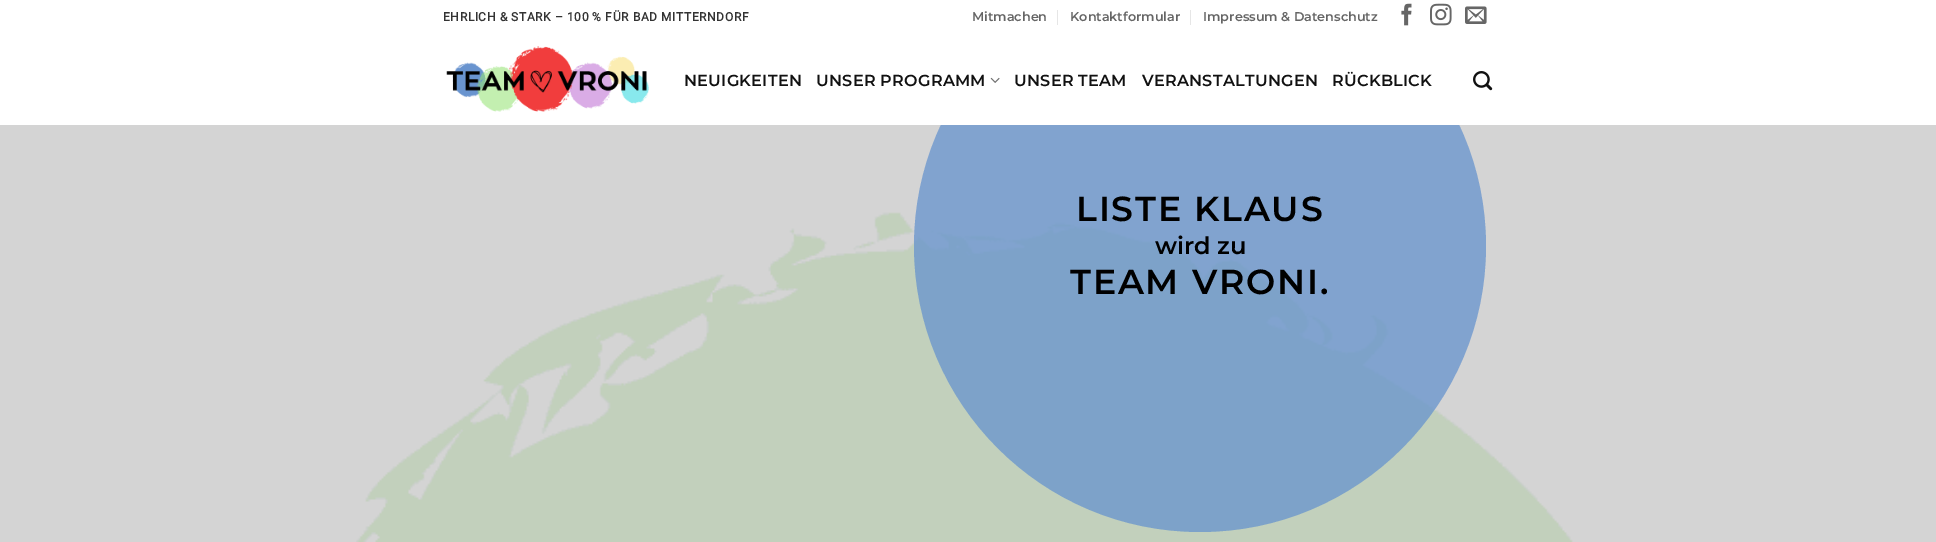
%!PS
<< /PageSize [1936 542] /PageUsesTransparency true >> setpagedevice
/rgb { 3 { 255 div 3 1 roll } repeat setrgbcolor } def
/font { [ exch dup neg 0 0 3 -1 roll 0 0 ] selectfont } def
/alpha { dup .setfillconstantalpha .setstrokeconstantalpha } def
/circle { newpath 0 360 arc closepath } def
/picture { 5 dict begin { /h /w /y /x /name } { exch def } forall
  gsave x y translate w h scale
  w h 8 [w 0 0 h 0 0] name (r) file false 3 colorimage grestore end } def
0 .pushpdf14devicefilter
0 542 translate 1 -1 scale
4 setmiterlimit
255 255 255 rgb
0 0 1936 542 rectfill
212 212 212 rgb
0 125 1936 417 rectfill
(img/7.rgb) 356 212 1217 330 picture
gsave
0 125 1936 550 rectclip
0.76 alpha
103 148 205 rgb
1200 246 286 circle fill
grestore
230 230 230 rgb
1057 10 1 15 rectfill
1190 10 1 15 rectfill
(img/1.rgb) 1401 3 11 23 picture
(img/2.rgb) 1430 3 22 23 picture
(img/3.rgb) 1465 6 22 18 picture
(img/4.rgb) 446 46 203 66 picture
(img/5.rgb) 990 77 10 6 picture
(img/6.rgb) 1473 71 20 20 picture
/Roboto-Bold 12 font
51 51 51 rgb
443 21 moveto 0.6 0 (EHRLICH & STARK – 100 % FÜR BAD MITTERNDORF) ashow
/Montserrat-Thin 12.75 font
101 101 101 rgb
[
  [(Mitmachen) 972 21]
  [(Kontaktformular) 1070 21]
  [(Impressum & Datenschutz) 1203 21]
] { aload pop moveto show } forall
/Montserrat-Thin 16 font
17 17 17 rgb
684 86 moveto 0.3 0 (NEUIGKEITEN) ashow
816 86 moveto 0.3 0 (UNSER PROGRAMM) ashow
1014 86 moveto 0.3 0 (UNSER TEAM) ashow
1142 86 moveto 0.3 0 (VERANSTALTUNGEN) ashow
1332 86 moveto 0.3 0 (RÜCKBLICK) ashow
/Montserrat-Thin 34.75 font
0 0 0 rgb
1076 221 moveto 1.75 0 (LISTE KLAUS) ashow
/Montserrat-Thin 24 font
1155 254 moveto (wird zu) show
/Montserrat-Thin 34.75 font
1070 294 moveto 1.75 0 (TEAM VRONI.) ashow
.poppdf14devicefilter showpage
